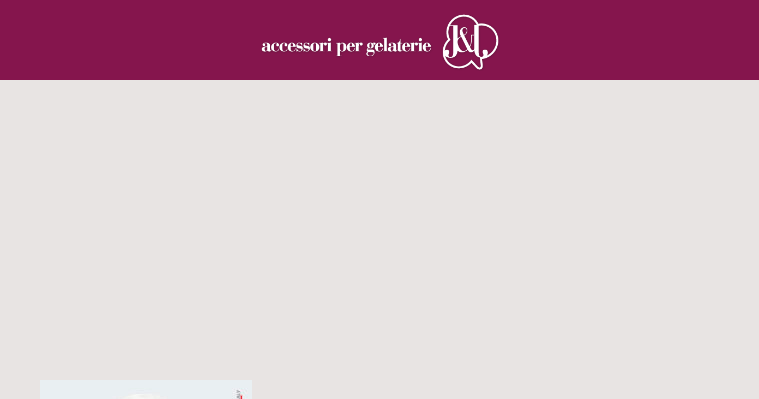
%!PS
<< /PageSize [759 399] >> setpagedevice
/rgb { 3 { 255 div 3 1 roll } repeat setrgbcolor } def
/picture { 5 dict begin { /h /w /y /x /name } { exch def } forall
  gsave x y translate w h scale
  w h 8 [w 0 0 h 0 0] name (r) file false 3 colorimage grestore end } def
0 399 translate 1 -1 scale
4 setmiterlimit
232 228 227 rgb
0 0 759 399 rectfill
133 21 77 rgb
0 0 759 80 rectfill
(img/1.rgb) 261 14 239 57 picture
(img/2.rgb) 40 380 212 19 picture
showpage
